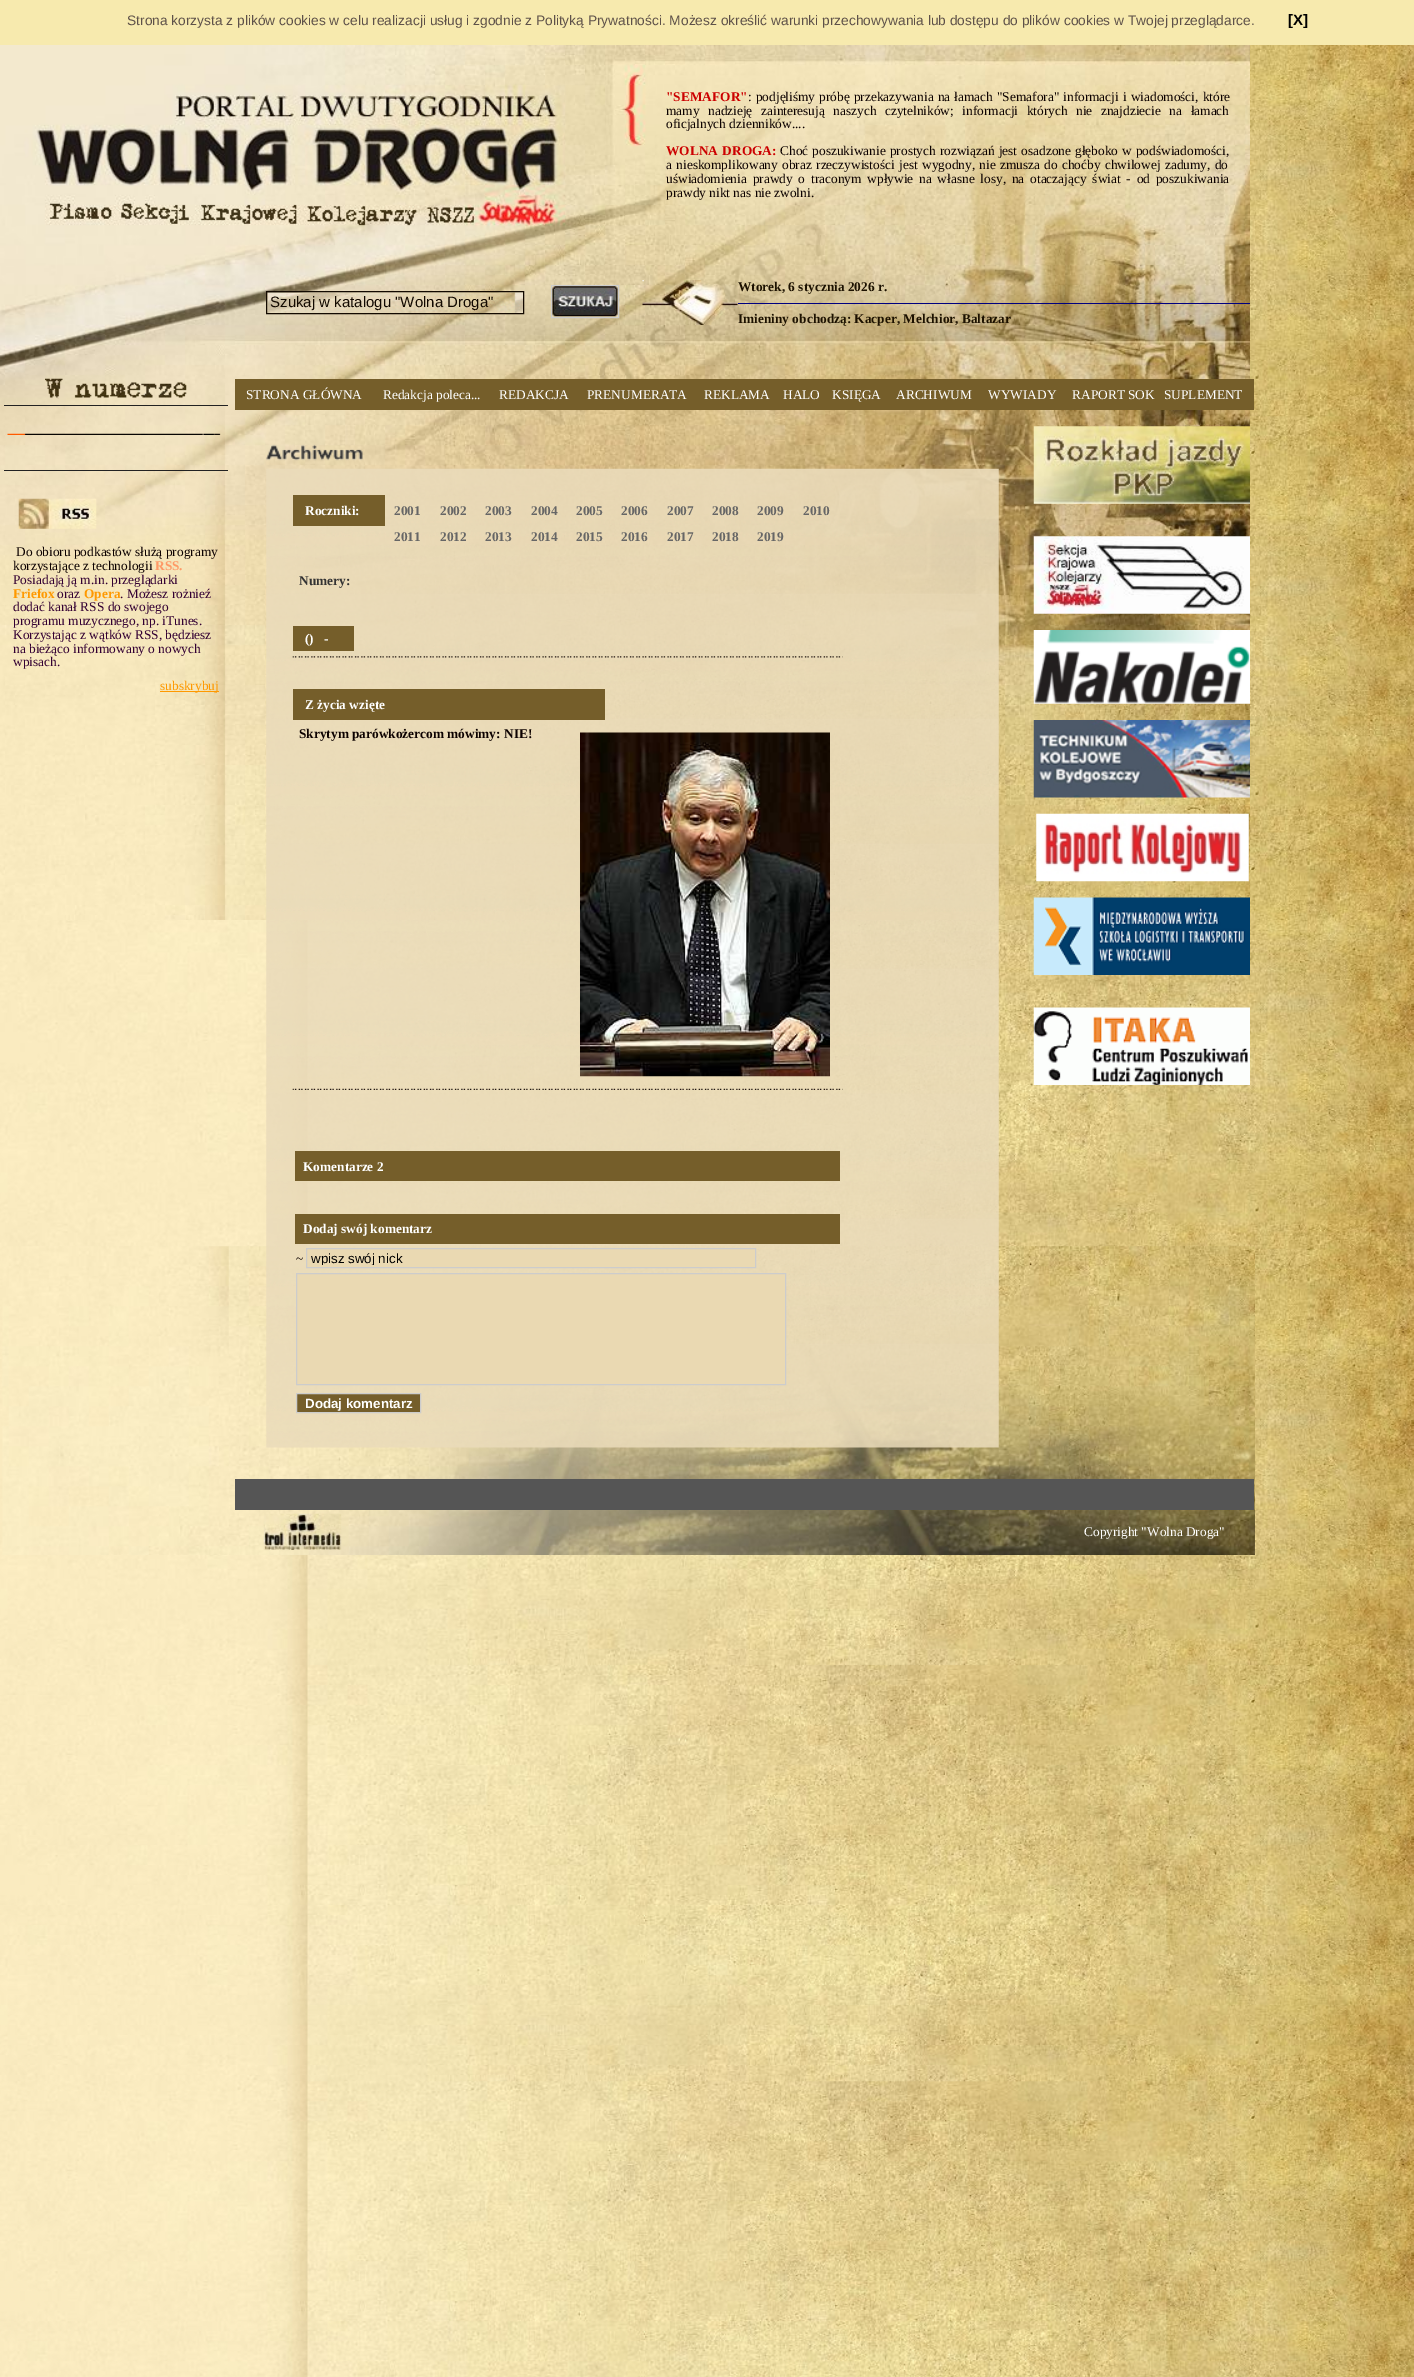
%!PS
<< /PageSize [1414 2377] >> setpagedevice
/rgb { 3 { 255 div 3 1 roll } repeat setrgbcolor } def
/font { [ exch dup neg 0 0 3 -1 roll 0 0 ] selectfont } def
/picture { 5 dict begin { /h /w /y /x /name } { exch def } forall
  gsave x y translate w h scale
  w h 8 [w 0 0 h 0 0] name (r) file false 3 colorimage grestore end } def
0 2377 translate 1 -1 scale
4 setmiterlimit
255 255 255 rgb
0 0 1414 2377 rectfill
(img/1.rgb) 0 45 1414 2332 picture
247 234 174 rgb
0 0 1414 45 rectfill
(img/2.rgb) 0 45 1250 875 picture
(img/3.rgb) 2 1246 1253 309 picture
(img/4.rgb) 267 292 256 21 picture
18 9 0 rgb
266.5 291.5 257 22 rectstroke
234 217 178 rgb
551.5 285.5 moveto 618.5 285.5 lineto 618.5 317.5 lineto 551.5 317.5 lineto closepath gsave fill grestore
204 204 204 rgb
stroke
(img/5.rgb) 552 286 66 31 picture
(img/6.rgb) 642 280 96 45 picture
0 0 128 rgb
738 303 512 1 rectfill
117 94 42 rgb
235 379 1019 31 rectfill
(img/7.rgb) 45 378 142 21 picture
34 34 34 rgb
4 405 224 1 rectfill
(img/8.rgb) 7 433 214 2 picture
4 470 224 1 rectfill
(img/9.rgb) 18 498 79 31 picture
255 153 0 rgb
160 691 59 1 rectfill
(img/10.rgb) 266 444 97 17 picture
(img/11.rgb) 266 468 733 980 picture
117 94 42 rgb
293 495 92 31 rectfill
293 626 61 25 rectfill
(img/12.rgb) 292 656 551 2 picture
293 689 312 31 rectfill
(img/13.rgb) 580 732 250 345 picture
(img/14.rgb) 292 1088 551 2 picture
295 1151 545 30 rectfill
295 1214 545 30 rectfill
234 217 178 rgb
306.5 1248.5 moveto 755.5 1248.5 lineto 755.5 1267.5 lineto 306.5 1267.5 lineto closepath gsave fill grestore
204 204 204 rgb
stroke
234 217 178 rgb
296.5 1273.5 moveto 785.5 1273.5 lineto 785.5 1384.5 lineto 296.5 1384.5 lineto closepath gsave fill grestore
204 204 204 rgb
stroke
117 94 42 rgb
296.5 1393.5 moveto 420.5 1393.5 lineto 420.5 1412.5 lineto 296.5 1412.5 lineto closepath gsave fill grestore
204 204 204 rgb
stroke
(img/15.rgb) 1033 426 217 78 picture
(img/16.rgb) 1033 536 217 78 picture
(img/17.rgb) 1033 630 217 74 picture
(img/18.rgb) 1033 720 217 78 picture
(img/19.rgb) 1036 813 213 69 picture
(img/20.rgb) 1033 897 217 78 picture
(img/21.rgb) 1033 1007 217 78 picture
85 85 85 rgb
235 1479 1019 31 rectfill
(img/22.rgb) 263 1513 79 37 picture
/LiberationSans-Regular 13.75 font
94 81 73 rgb
127 25 moveto (Strona korzysta z plików cookies w celu realizacji usług i zgodnie z Polityką Prywatności. Możesz określić warunki przechowywania lub dostępu do plików cookies w Twojej przeglądarce.) show
/LiberationSans-Bold 15 font
0 0 0 rgb
1288 25 moveto ([X]) show
/LiberationSerif-Bold 13.35 font
204 0 0 rgb
666 101 moveto ("SEMAFOR") show
/LiberationSerif-Regular 13.35 font
12 1 0 rgb
748 101 moveto 0.75 0 32 (: podjęliśmy próbę przekazywania na łamach "Semafora" informacji i wiadomości, które) widthshow
666 115 moveto 5.25 0 32 (mamy nadzieję zainteresują naszych czytelników; informacji których nie znajdziecie na łamach) widthshow
666 128 moveto (oficjalnych dzienników....) show
/LiberationSerif-Bold 13.35 font
204 0 0 rgb
666 155 moveto 1 0 32 (WOLNA DROGA:) widthshow
/LiberationSerif-Regular 13.35 font
12 1 0 rgb
780 155 moveto 0.75 0 32 (Choć poszukiwanie prostych rozwiązań jest osadzone głęboko w podświadomości,) widthshow
666 169 moveto 1 0 32 (a nieskomplikowany obraz rzeczywistości jest wygodny, nie zmusza do choćby chwilowej zadumy, do) widthshow
666 183 moveto 2.5 0 32 (uświadomienia prawdy o traconym wpływie na własne losy, na otaczający świat - od poszukiwania) widthshow
666 197 moveto (prawdy nikt nas nie zwolni.) show
/LiberationSans-Regular 15 font
18 9 0 rgb
270 307 moveto (Szukaj w katalogu "Wolna Droga") show
/LiberationSerif-Bold 13.35 font
28 17 0 rgb
738 291 moveto (Wtorek, 6 stycznia 2026 r.) show
738 323 moveto (Imieniny obchodzą: Kacper, Melchior, Baltazar) show
/LiberationSerif-Regular 13.35 font
255 255 255 rgb
[
  [(STRONA GŁÓWNA) 246 399]
  [(Redakcja poleca...) 383 399]
  [(REDAKCJA) 499 399]
  [(PRENUMERATA) 587 399]
  [(REKLAMA) 704 399]
  [(HALO) 783 399]
  [(KSIĘGA) 832 399]
  [(ARCHIWUM) 896 399]
  [(WYWIADY) 988 399]
  [(RAPORT SOK) 1072 399]
  [(SUPLEMENT) 1164 399]
] { aload pop moveto show } forall
12 1 0 rgb
16 556 moveto (Do obioru podkastów służą programy) show
13 570 moveto (korzystające z technologii) show
/LiberationSerif-Bold 13.35 font
255 153 102 rgb
155 570 moveto (RSS.) show
/LiberationSerif-Regular 13.35 font
51 0 51 rgb
13 584 moveto (Posiadają ją m.in. przeglądarki) show
/LiberationSerif-Bold 13.35 font
255 153 0 rgb
13 598 moveto (Friefox) show
/LiberationSerif-Regular 13.35 font
51 0 51 rgb
57 598 moveto (oraz) show
/LiberationSerif-Bold 13.35 font
255 153 0 rgb
84 598 moveto (Opera) show
/LiberationSerif-Regular 13.35 font
51 0 51 rgb
[
  [(. Możesz rożnieź) 120 598]
  [(dodać kanał RSS do swojego) 13 611]
  [(programu muzycznego, np. iTunes.) 13 625]
  [(Korzystając z wątków RSS, będziesz) 13 639]
  [(na bieżąco informowany o nowych) 13 653]
  [(wpisach.) 13 666]
] { aload pop moveto show } forall
255 153 0 rgb
160 690 moveto (subskrybuj) show
/LiberationSerif-Bold 13.35 font
255 255 255 rgb
305 515 moveto (Roczniki:) show
102 102 102 rgb
[
  [(2001) 394 515]
  [(2002) 440 515]
  [(2003) 485 515]
  [(2004) 531 515]
  [(2005) 576 515]
  [(2006) 621 515]
  [(2007) 667 515]
  [(2008) 712 515]
  [(2009) 757 515]
  [(2010) 803 515]
  [(2011) 394 541]
  [(2012) 440 541]
  [(2013) 485 541]
  [(2014) 531 541]
  [(2015) 576 541]
  [(2016) 621 541]
  [(2017) 667 541]
  [(2018) 712 541]
  [(2019) 757 541]
] { aload pop moveto show } forall
51 51 51 rgb
299 585 moveto (Numery:) show
255 255 255 rgb
305 643 moveto (\(\)   -) show
305 709 moveto (Z życia wzięte) show
12 1 0 rgb
299 738 moveto (Skrytym parówkożercom mówimy: NIE!) show
255 255 255 rgb
303 1171 moveto (Komentarze 2) show
303 1233 moveto (Dodaj swój komentarz) show
/LiberationSerif-Regular 13.35 font
12 1 0 rgb
296 1263 moveto (~) show
gsave
310 1250 443 15 rectclip
/LiberationSans-Regular 13.35 font
0 0 0 rgb
311 1263 moveto (wpisz swój nick) show
grestore
/LiberationSans-Bold 13.35 font
255 255 255 rgb
305 1408 moveto (Dodaj komentarz) show
/LiberationSerif-Regular 13.35 font
1084 1536 moveto (Copyright "Wolna Droga") show
showpage
